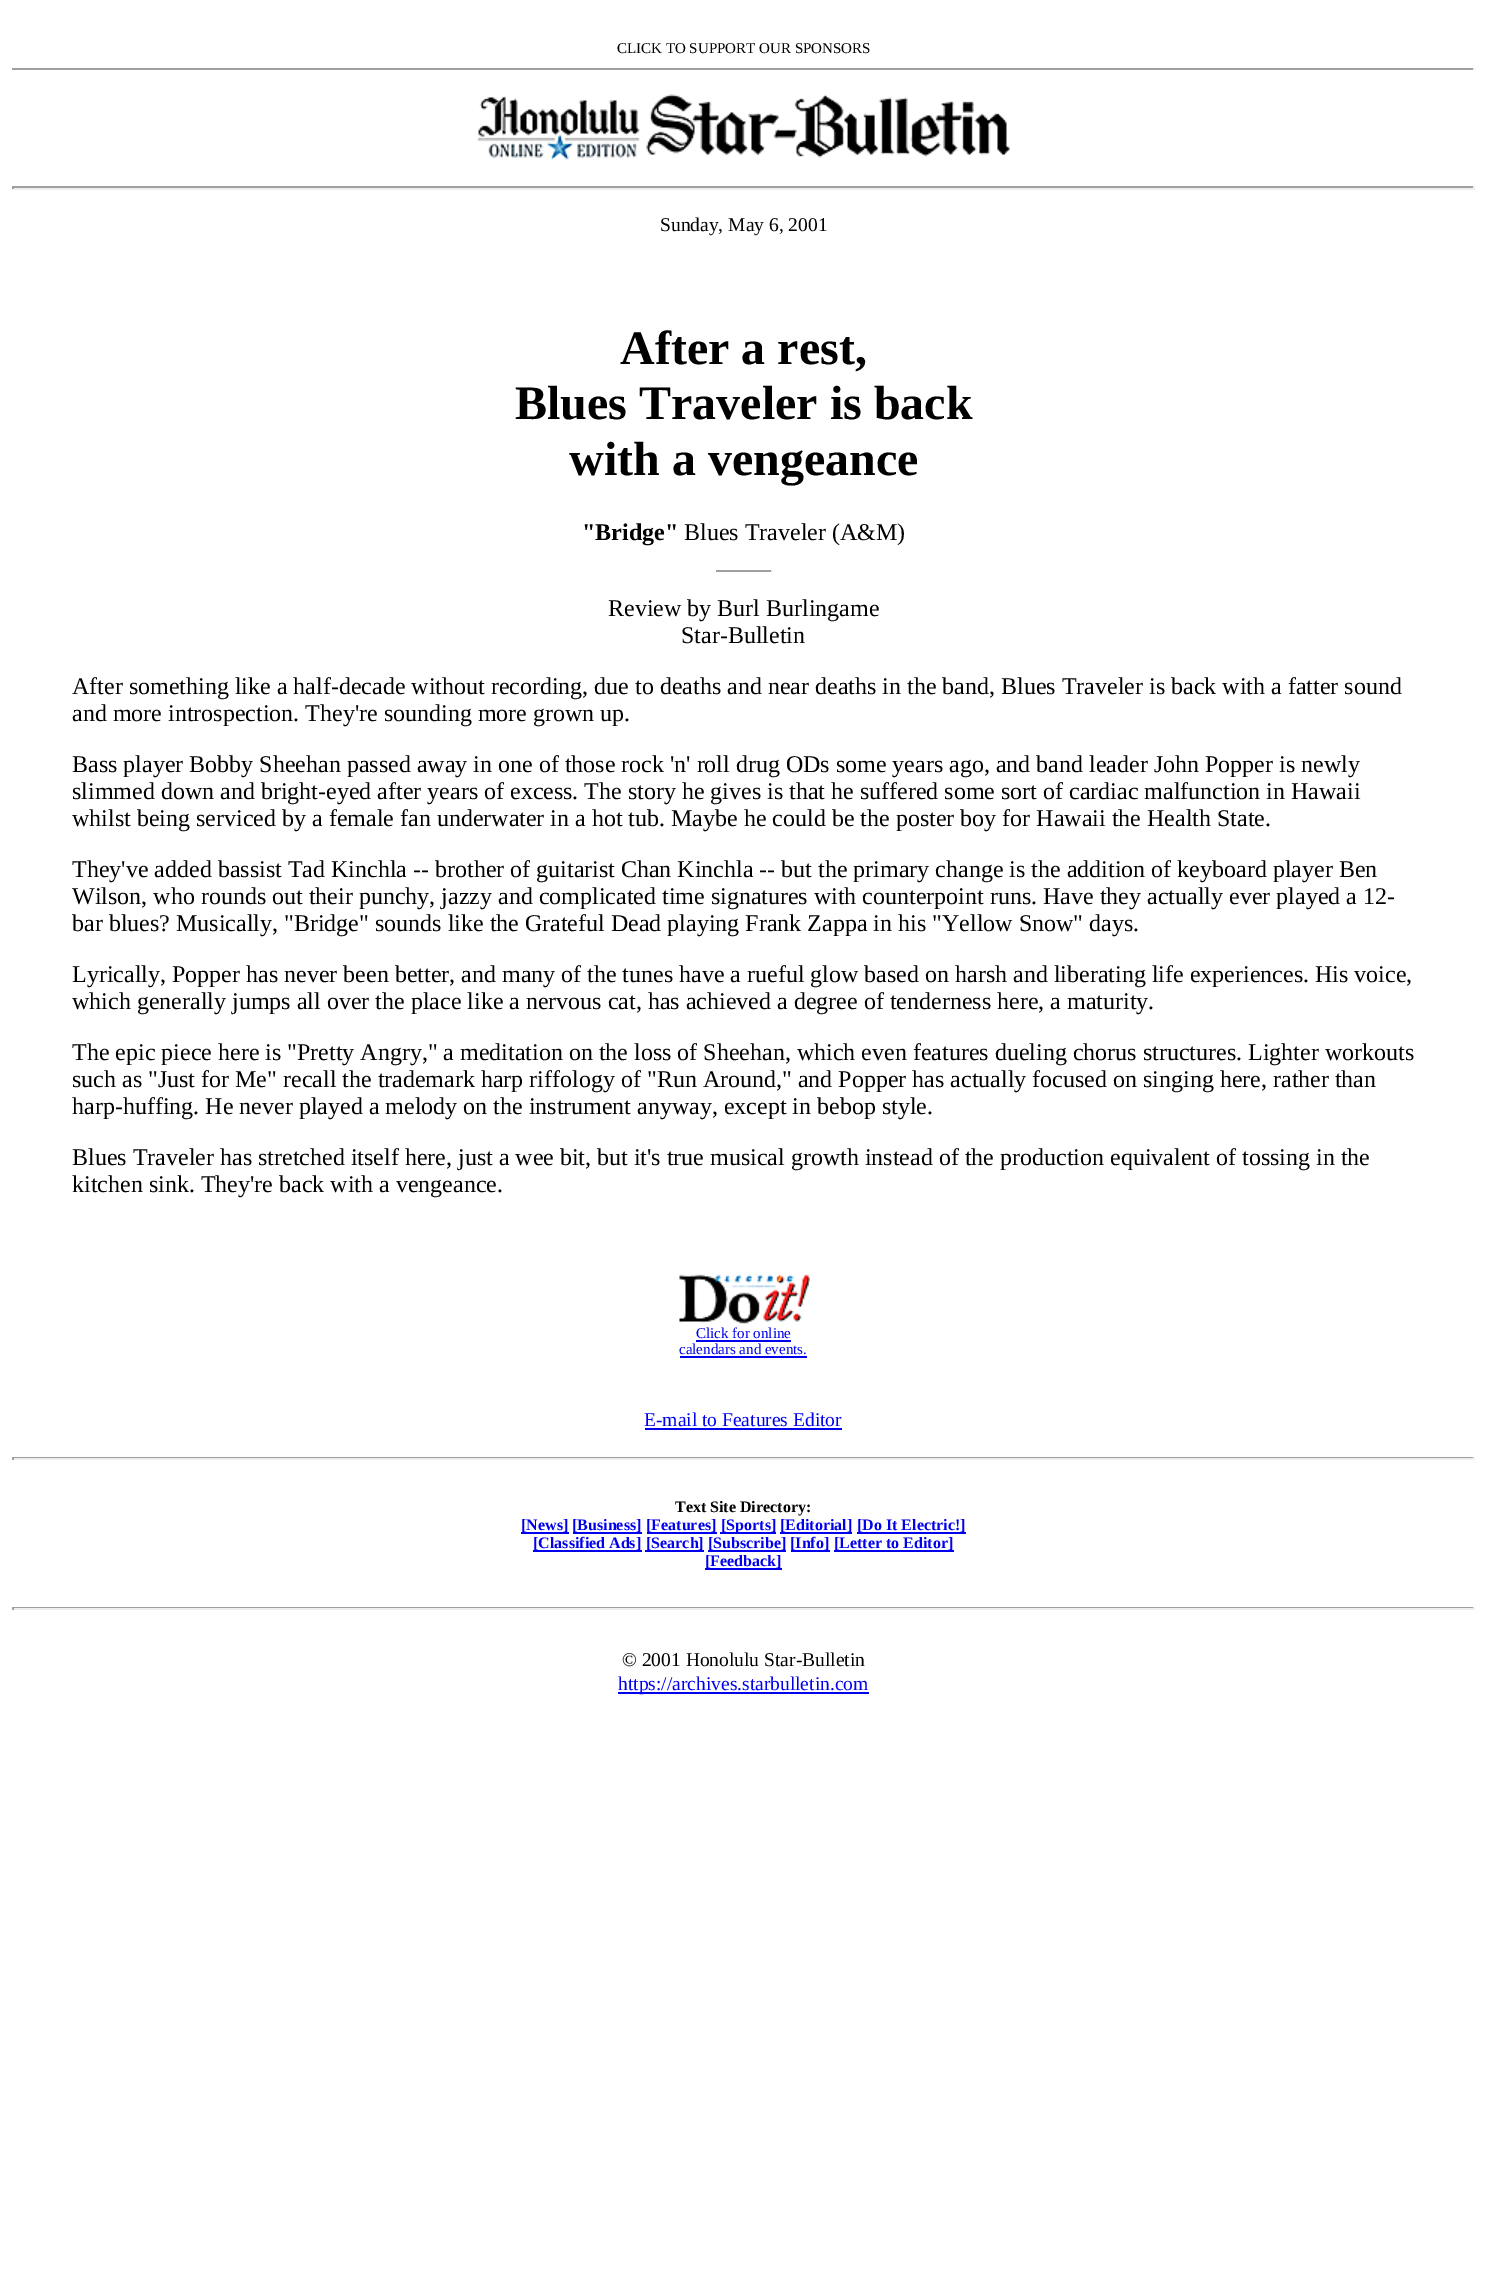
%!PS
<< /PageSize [1486 2276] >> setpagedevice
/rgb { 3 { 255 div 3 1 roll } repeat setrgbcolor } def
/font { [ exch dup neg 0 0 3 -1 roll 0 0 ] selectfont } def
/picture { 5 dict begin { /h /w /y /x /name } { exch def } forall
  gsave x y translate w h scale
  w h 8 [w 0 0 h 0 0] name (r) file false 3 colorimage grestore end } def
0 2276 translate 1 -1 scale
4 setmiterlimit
255 255 255 rgb
0 0 1486 2276 rectfill
159 159 159 rgb
12 68 1463 2 rectfill
238 238 238 rgb
1473 68 2 2 rectfill
(img/1.rgb) 477 94 533 66 picture
[
  [12 186 1463 2 159 159 159]
  [1473 186 2 3 238 238 238]
  [12 188 1463 2 238 238 238]
  [12 186 2 3 159 159 159]
  [716 570 57 2 159 159 159]
  [771 570 2 2 238 238 238]
] { aload pop rgb rectfill } forall
(img/2.rgb) 679 1274 131 50 picture
[
  [696 1340 95 2 0 0 238]
  [680 1356 127 2 0 0 238]
  [645 1428 197 2 0 0 238]
  [12 1457 1463 1 159 159 159]
  [1473 1457 2 3 238 238 238]
  [12 1458 1463 2 238 238 238]
  [12 1457 2 3 159 159 159]
  [521 1532 48 2 0 0 238]
  [573 1532 69 2 0 0 238]
  [647 1532 70 2 0 0 238]
  [720 1532 56 2 0 0 238]
  [780 1532 72 2 0 0 238]
  [857 1532 109 2 0 0 238]
  [533 1550 109 2 0 0 238]
  [645 1550 59 2 0 0 238]
  [708 1550 78 2 0 0 238]
  [791 1550 39 2 0 0 238]
  [834 1550 120 2 0 0 238]
  [705 1568 77 2 0 0 238]
  [12 1607 1463 1 159 159 159]
  [1473 1607 2 3 238 238 238]
  [12 1608 1463 2 238 238 238]
  [12 1607 2 3 159 159 159]
  [618 1692 251 2 0 0 238]
] { aload pop rgb rectfill } forall
/LiberationSerif-Regular 15 font
0 0 0 rgb
617 53 moveto (CLICK TO SUPPORT OUR SPONSORS) show
/LiberationSerif-Regular 19.5 font
660 231 moveto (Sunday, May 6, 2001) show
/LiberationSerif-Bold 48 font
[
  [(After a rest,) 620 364]
  [(Blues Traveler is back) 515 419]
  [(with a vengeance) 569 475]
] { aload pop moveto show } forall
/LiberationSerif-Bold 24 font
582 540 moveto ("Bridge") show
/LiberationSerif-Regular 24 font
[
  [(Blues Traveler \(A&M\)) 684 540]
  [(Review by Burl Burlingame) 608 616]
  [(Star-Bulletin) 681 643]
  [(After something like a half-decade without recording, due to deaths and near deaths in the band, Blues Traveler is back with a fatter sound) 72 694]
  [(and more introspection. They're sounding more grown up.) 72 721]
  [(Bass player Bobby Sheehan passed away in one of those rock 'n' roll drug ODs some years ago, and band leader John Popper is newly) 72 772]
  [(slimmed down and bright-eyed after years of excess. The story he gives is that he suffered some sort of cardiac malfunction in Hawaii) 72 799]
  [(whilst being serviced by a female fan underwater in a hot tub. Maybe he could be the poster boy for Hawaii the Health State.) 72 826]
  [(They've added bassist Tad Kinchla -- brother of guitarist Chan Kinchla -- but the primary change is the addition of keyboard player Ben) 72 877]
  [(Wilson, who rounds out their punchy, jazzy and complicated time signatures with counterpoint runs. Have they actually ever played a 12-) 72 904]
  [(bar blues? Musically, "Bridge" sounds like the Grateful Dead playing Frank Zappa in his "Yellow Snow" days.) 72 931]
  [(Lyrically, Popper has never been better, and many of the tunes have a rueful glow based on harsh and liberating life experiences. His voice,) 72 982]
  [(which generally jumps all over the place like a nervous cat, has achieved a degree of tenderness here, a maturity.) 72 1009]
  [(The epic piece here is "Pretty Angry," a meditation on the loss of Sheehan, which even features dueling chorus structures. Lighter workouts) 72 1060]
  [(such as "Just for Me" recall the trademark harp riffology of "Run Around," and Popper has actually focused on singing here, rather than) 72 1087]
  [(harp-huffing. He never played a melody on the instrument anyway, except in bebop style.) 72 1114]
  [(Blues Traveler has stretched itself here, just a wee bit, but it's true musical growth instead of the production equivalent of tossing in the) 72 1165]
  [(kitchen sink. They're back with a vengeance.) 72 1192]
] { aload pop moveto show } forall
/LiberationSerif-Regular 15 font
0 0 238 rgb
696 1338 moveto (Click for online) show
679 1354 moveto (calendars and events.) show
/LiberationSerif-Regular 19.5 font
644 1426 moveto (E-mail to Features Editor) show
/LiberationSerif-Bold 16 font
0 0 0 rgb
675 1512 moveto (Text Site Directory:) show
0 0 238 rgb
[
  [([News]) 521 1530]
  [([Business]) 572 1530]
  [([Features]) 646 1530]
  [([Sports]) 721 1530]
  [([Editorial]) 780 1530]
  [([Do It Electric!]) 857 1530]
  [([Classified Ads]) 533 1548]
  [([Search]) 646 1548]
  [([Subscribe]) 708 1548]
  [([Info]) 790 1548]
  [([Letter to Editor]) 834 1548]
  [([Feedback]) 705 1566]
] { aload pop moveto show } forall
/LiberationSerif-Regular 19.5 font
0 0 0 rgb
622 1666 moveto (© 2001 Honolulu Star-Bulletin) show
0 0 238 rgb
618 1690 moveto (https://archives.starbulletin.com) show
showpage
